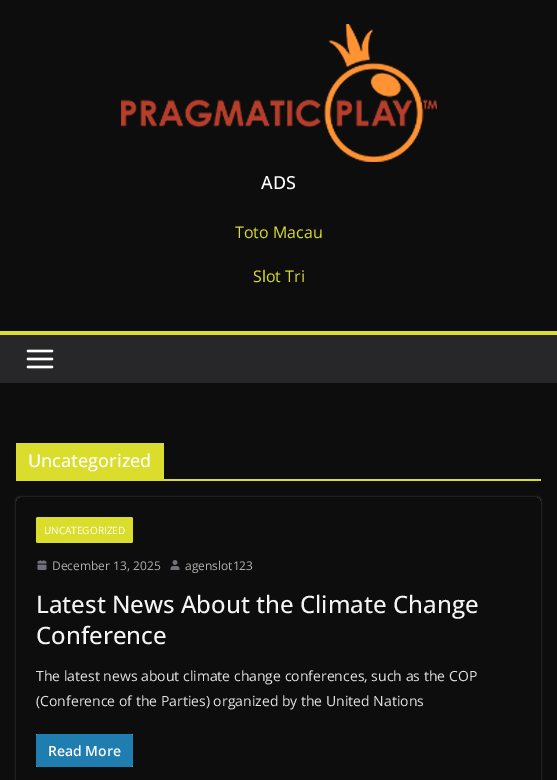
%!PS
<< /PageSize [557 780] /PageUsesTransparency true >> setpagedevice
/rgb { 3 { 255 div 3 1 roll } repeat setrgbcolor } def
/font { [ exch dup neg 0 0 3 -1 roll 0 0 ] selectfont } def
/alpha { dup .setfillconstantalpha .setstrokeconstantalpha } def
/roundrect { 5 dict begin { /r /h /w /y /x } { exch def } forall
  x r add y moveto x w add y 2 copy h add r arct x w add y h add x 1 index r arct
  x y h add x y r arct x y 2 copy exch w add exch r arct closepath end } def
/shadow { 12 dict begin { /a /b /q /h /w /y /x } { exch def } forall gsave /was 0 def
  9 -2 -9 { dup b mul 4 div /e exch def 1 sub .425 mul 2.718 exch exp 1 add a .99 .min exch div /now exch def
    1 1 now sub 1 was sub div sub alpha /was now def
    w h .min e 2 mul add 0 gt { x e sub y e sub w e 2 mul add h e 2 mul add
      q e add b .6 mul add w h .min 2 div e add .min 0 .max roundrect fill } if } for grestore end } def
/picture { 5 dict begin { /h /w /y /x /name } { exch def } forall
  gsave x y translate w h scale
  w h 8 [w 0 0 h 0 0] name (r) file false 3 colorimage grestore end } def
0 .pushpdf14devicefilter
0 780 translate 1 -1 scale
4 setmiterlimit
13 13 13 rgb
0 0 557 780 rectfill
(img/1.rgb) 121 24 316 138 picture
39 39 42 rgb
0 335 557 48 rectfill
218 221 44 rgb
0 331 557 4 rectfill
(img/2.rgb) 26 349 28 20 picture
16 479 525 2 rectfill
16 443 148 36 rectfill
gsave
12 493 moveto 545 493 lineto 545 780 lineto 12 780 lineto closepath 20 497 moveto 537 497 lineto 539 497 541 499 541 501 curveto 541 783 lineto 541 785 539 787 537 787 curveto 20 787 lineto 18 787 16 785 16 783 curveto 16 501 lineto 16 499 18 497 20 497 curveto closepath eoclip newpath
255 255 255 rgb
16 497 525 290 4 1 0.24 shadow
grestore
36 517 97 26 2 roundrect fill
(img/3.rgb) 37 560 10 10 picture
(img/4.rgb) 170 560 10 10 picture
36 734 97 33 rectfill
32 125 175 rgb
36 734 97 33 2 roundrect fill
/OpenSans-Medium 18 font
255 255 255 rgb
261 189 moveto (ADS) show
/OpenSans-Regular 16 font
218 221 44 rgb
235 238 moveto (Toto Macau) show
253 282 moveto (Slot Tri) show
/OpenSans-Medium 18 font
255 255 255 rgb
28 467 moveto (Uncategorized) show
/OpenSans-Regular 10 font
44 534 moveto (UNCATEGORIZED) show
/OpenSans-Regular 12 font
174 174 174 rgb
52 570 moveto (December 13, 2025) show
185 570 moveto (agenslot123) show
/OpenSans-Medium 24 font
244 244 245 rgb
36 613 moveto (Latest News About the Climate Change) show
36 644 moveto (Conference) show
/OpenSans-Regular 14 font
227 226 226 rgb
36 681 moveto (The latest news about climate change conferences, such as the COP) show
36 706 moveto (\(Conference of the Parties\) organized by the United Nations) show
/OpenSans-SemiBold 14 font
255 255 255 rgb
48 756 moveto (Read More) show
.poppdf14devicefilter showpage
